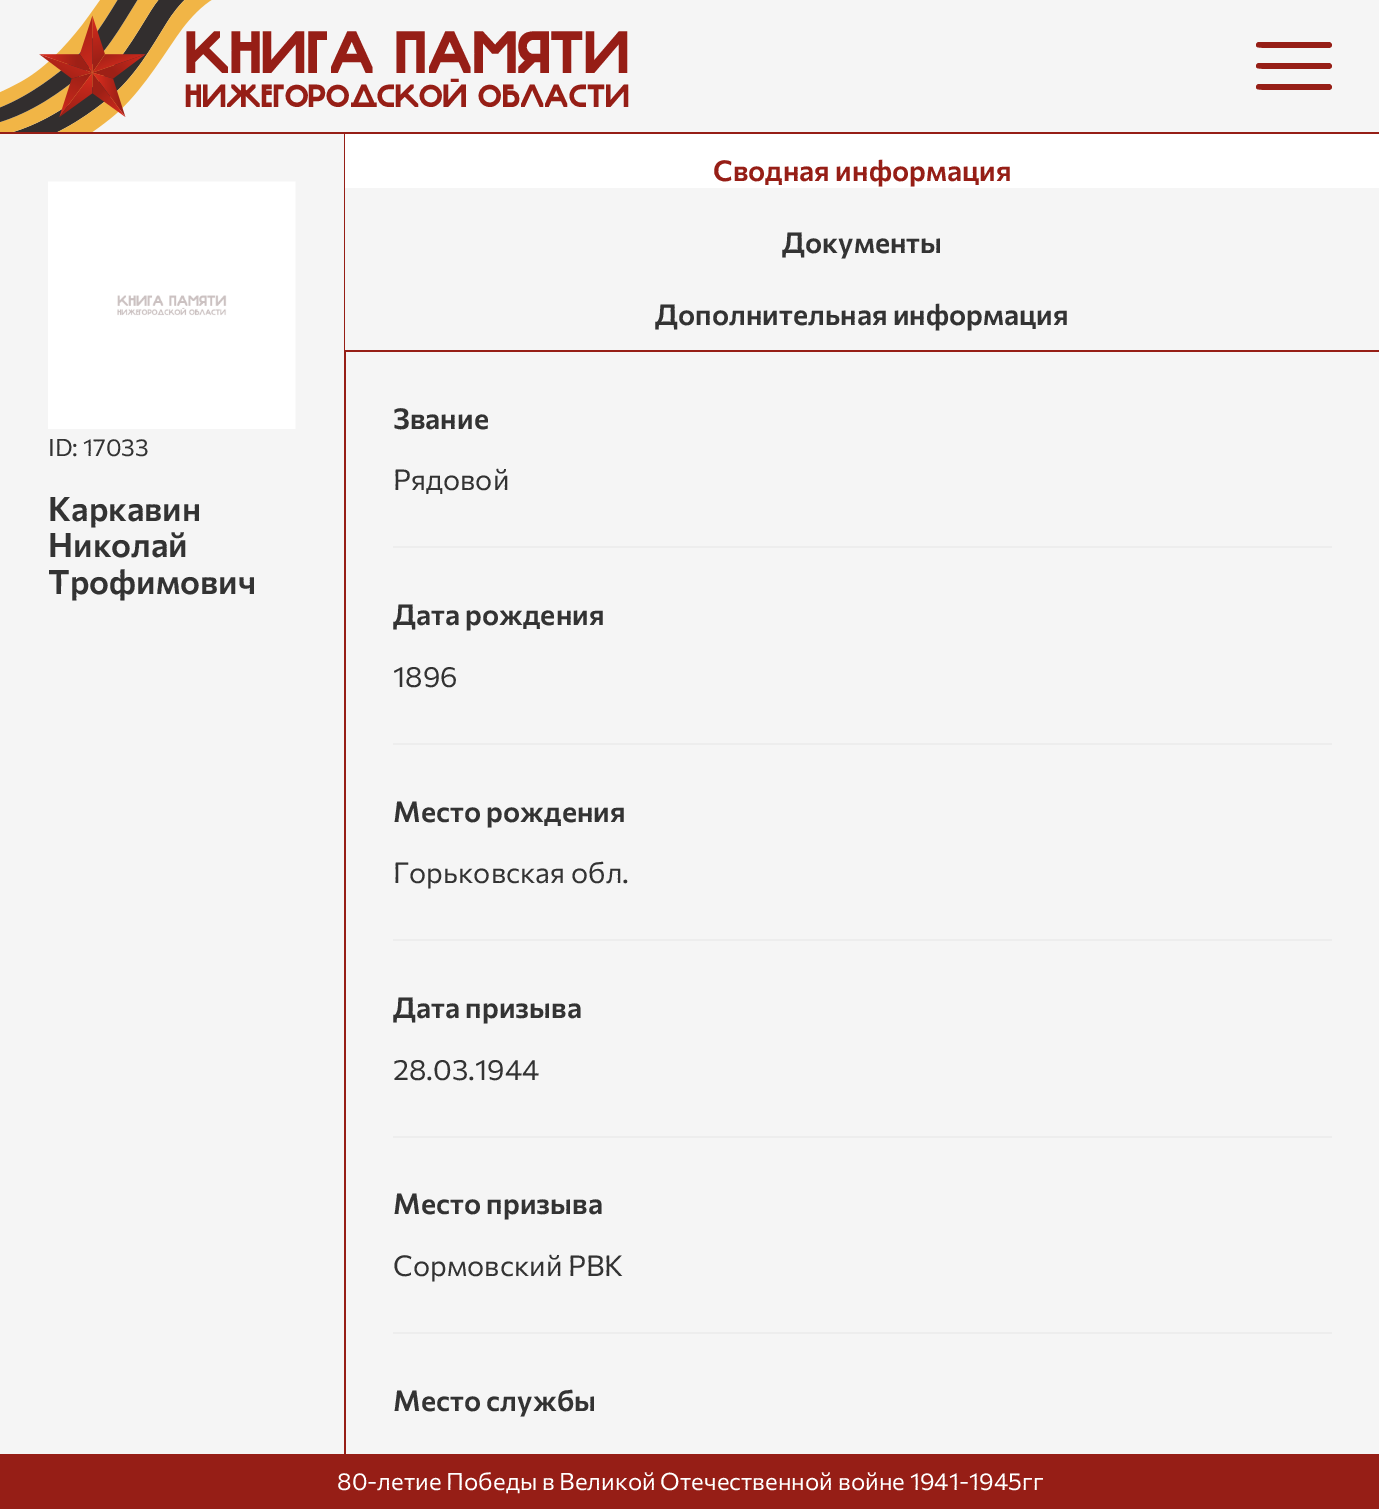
%!PS
<< /PageSize [1379 1509] >> setpagedevice
/rgb { 3 { 255 div 3 1 roll } repeat setrgbcolor } def
/font { [ exch dup neg 0 0 3 -1 roll 0 0 ] selectfont } def
/picture { 5 dict begin { /h /w /y /x /name } { exch def } forall
  gsave x y translate w h scale
  w h 8 [w 0 0 h 0 0] name (r) file false 3 colorimage grestore end } def
0 1509 translate 1 -1 scale
4 setmiterlimit
245 245 245 rgb
0 0 1379 1509 rectfill
150 30 22 rgb
0 132 1379 2 rectfill
(img/1.rgb) 0 0 212 132 picture
(img/2.rgb) 39 15 107 102 picture
gsave
1256 42 76 6 rectclip
1259 42 moveto 1330 42 lineto 1332 44 lineto 1333 50 1324 48 1317 48 curveto 1311 48 1259 49 1257 47 curveto 1255 46 1256 42 1259 42 curveto closepath fill
grestore
gsave
1256 63 76 6 rectclip
1259 63 moveto 1330 63 lineto 1332 65 lineto 1333 71 1324 69 1317 69 curveto 1311 69 1259 70 1257 68 curveto 1255 67 1256 63 1259 63 curveto closepath fill
grestore
gsave
1256 84 76 6 rectclip
1259 84 moveto 1330 84 lineto 1332 86 lineto 1333 92 1324 90 1317 90 curveto 1311 90 1259 91 1257 89 curveto 1255 88 1256 84 1259 84 curveto closepath fill
grestore
344 134 2 1320 rectfill
(img/3.rgb) 48 181 248 248 picture
[
  [345 188 1 162 245 245 245]
  [345 350 1034 2 150 30 22]
  [345 134 1034 54 255 255 255]
  [393 546 939 2 237 237 237]
  [393 743 939 2 237 237 237]
  [393 939 939 2 237 237 237]
  [393 1136 939 2 237 237 237]
  [393 1332 939 2 237 237 237]
  [0 1454 1379 55 150 30 22]
] { aload pop rgb rectfill } forall
/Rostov-Regular 60 font
185 73 moveto (КНИГА ПАМЯТИ) show
/Rostov-Regular 32.2 font
185 107 moveto (НИЖЕГОРОДСКОЙ ОБЛАСТИ) show
/Commissioner-Regular 24 font
51 51 51 rgb
48 456 moveto (ID: 17033) show
/Commissioner-SemiBold 33.5 font
[
  [(Каркавин) 48 521]
  [(Николай) 48 557]
  [(Трофимович) 48 594]
] { aload pop moveto show } forall
/Commissioner-SemiBold 28.75 font
150 30 22 rgb
713 181 moveto (Сводная информация) show
51 51 51 rgb
[
  [(Документы) 782 253]
  [(Дополнительная информация) 655 325]
  [(Звание) 393 429]
] { aload pop moveto show } forall
/Commissioner-Regular 28.75 font
393 490 moveto (Рядовой) show
/Commissioner-SemiBold 28.75 font
393 625 moveto (Дата рождения) show
/Commissioner-Regular 28.75 font
393 687 moveto (1896) show
/Commissioner-SemiBold 28.75 font
393 822 moveto (Место рождения) show
/Commissioner-Regular 28.75 font
393 883 moveto (Горьковская обл.) show
/Commissioner-SemiBold 28.75 font
393 1018 moveto (Дата призыва) show
/Commissioner-Regular 28.75 font
393 1080 moveto (28.03.1944) show
/Commissioner-SemiBold 28.75 font
393 1214 moveto (Место призыва) show
/Commissioner-Regular 28.75 font
393 1276 moveto (Сормовский РВК) show
/Commissioner-SemiBold 28.75 font
393 1411 moveto (Место службы) show
/Commissioner-Regular 24 font
255 255 255 rgb
337 1490 moveto (80-летие Победы в Великой Отечественной войне 1941-1945гг) show
showpage
